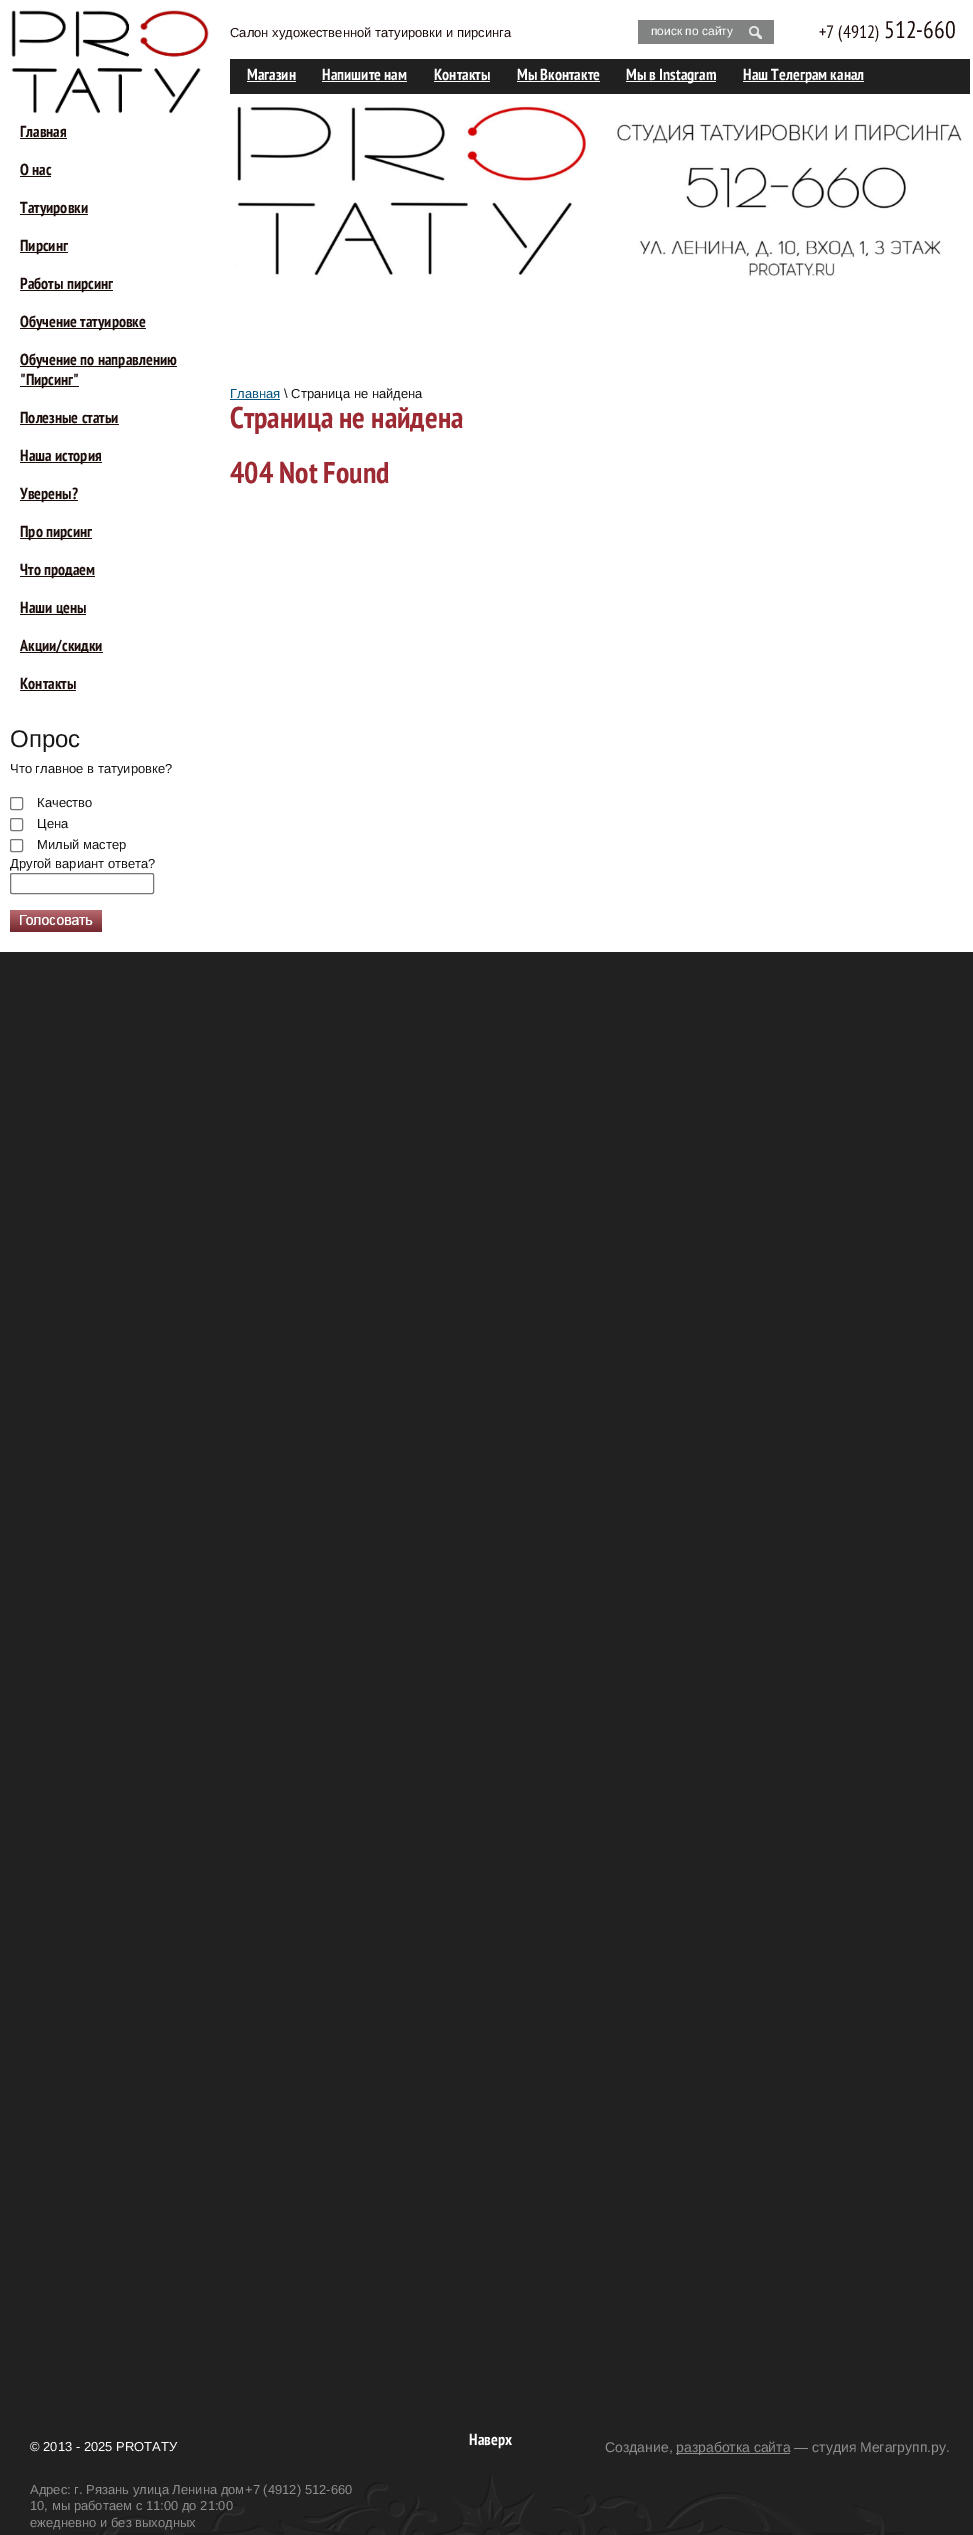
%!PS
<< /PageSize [973 2535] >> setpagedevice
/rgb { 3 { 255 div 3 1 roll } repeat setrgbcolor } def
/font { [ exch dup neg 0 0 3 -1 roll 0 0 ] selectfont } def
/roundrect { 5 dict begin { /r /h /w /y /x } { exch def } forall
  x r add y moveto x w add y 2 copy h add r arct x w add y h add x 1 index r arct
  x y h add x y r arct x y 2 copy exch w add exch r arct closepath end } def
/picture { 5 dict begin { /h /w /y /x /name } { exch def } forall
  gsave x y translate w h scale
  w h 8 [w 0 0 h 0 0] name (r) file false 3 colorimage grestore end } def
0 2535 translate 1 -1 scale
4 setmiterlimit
33 33 33 rgb
0 0 973 2535 rectfill
255 255 255 rgb
0 0 973 952 rectfill
129 130 130 rgb
638 20 136 24 rectfill
(img/1.rgb) 749 26 13 13 picture
(img/2.rgb) 11 10 198 104 picture
[
  [20 138 47 1 28 14 11]
  [20 176 31 1 28 14 11]
  [20 214 68 1 28 14 11]
  [20 252 48 1 28 14 11]
  [20 290 93 1 28 14 11]
  [20 328 126 1 28 14 11]
  [20 366 157 1 28 14 11]
  [20 386 59 1 28 14 11]
  [20 424 99 1 28 14 11]
  [20 462 82 1 28 14 11]
  [20 500 58 1 28 14 11]
  [20 538 72 1 28 14 11]
  [20 576 75 1 28 14 11]
  [20 614 66 1 28 14 11]
  [20 652 83 1 28 14 11]
  [20 690 56 1 28 14 11]
] { aload pop rgb rectfill } forall
118 118 118 rgb
10.5 797.5 12 12 1.5 roundrect stroke
10.5 818.5 12 12 1.5 roundrect stroke
10.5 839.5 12 12 1.5 roundrect stroke
10.5 873.5 143 20 1.5 roundrect stroke
(img/3.rgb) 10 910 92 22 picture
[
  [230 59 740 35 32 32 32]
  [247 81 49 1 255 255 255]
  [322 81 85 1 255 255 255]
  [434 81 56 1 255 255 255]
  [517 81 83 1 255 255 255]
  [626 81 90 1 255 255 255]
  [743 81 121 1 255 255 255]
] { aload pop rgb rectfill } forall
(img/4.rgb) 235 105 727 172 picture
5 86 126 rgb
230 399 50 1 rectfill
(img/5.rgb) 74 2475 832 60 picture
142 142 142 rgb
676 2453 114 1 rectfill
/LiberationSans-Regular 13 font
28 14 11 rgb
230 37 moveto (Салон художественной татуировки и пирсинга) show
/LiberationSans-Regular 12 font
255 255 255 rgb
651 35 moveto (поиск по сайту) show
/PTSansNarrow-Regular 18 font
28 14 11 rgb
819 38 moveto (+7 \(4912\)) show
/PTSansNarrow-Regular 24 font
884 38 moveto (512-660) show
/PTSansNarrow-Bold 16 font
[
  [(Главная) 20 137]
  [(О нас) 20 175]
  [(Татуировки) 20 213]
  [(Пирсинг) 20 251]
  [(Работы пирсинг) 20 289]
  [(Обучение татуировке) 20 327]
  [(Обучение по направлению) 20 365]
  [("Пирсинг") 20 385]
  [(Полезные статьи) 20 423]
  [(Наша история) 20 461]
  [(Уверены?) 20 499]
  [(Про пирсинг) 20 537]
  [(Что продаем) 20 575]
  [(Наши цены) 20 613]
  [(Акции/скидки) 20 651]
  [(Контакты) 20 689]
] { aload pop moveto show } forall
/LiberationSans-Regular 24 font
21 21 21 rgb
10 747 moveto (Опрос) show
/LiberationSans-Regular 13 font
[
  [(Что главное в татуировке?) 10 773]
  [(Качество) 37 807]
  [(Цена) 37 828]
  [(Милый мастер) 37 849]
  [(Другой вариант ответа?) 10 868]
] { aload pop moveto show } forall
/PTSansNarrow-Bold 16 font
255 255 255 rgb
[
  [(Магазин) 247 80]
  [(Напишите нам) 322 80]
  [(Контакты) 434 80]
  [(Мы Вконтакте) 517 80]
  [(Мы в Instagram) 626 80]
  [(Наш Телеграм канал) 743 80]
] { aload pop moveto show } forall
/LiberationSans-Regular 13 font
5 86 126 rgb
230 398 moveto (Главная) show
21 21 21 rgb
284 398 moveto (\\ Страница не найдена) show
/PTSansNarrow-Bold 30 font
157 42 51 rgb
230 428 moveto (Страница не найдена) show
230 483 moveto (404 Not Found) show
/LiberationSans-Regular 13 font
255 255 255 rgb
30 2451 moveto (© 2013 - 2025 PROТАТУ) show
/PTSansNarrow-Bold 16 font
469 2445 moveto (Наверх) show
/LiberationSans-Regular 14 font
142 142 142 rgb
605 2452 moveto (Создание,) show
676 2452 moveto (разработка сайта — студия Мегагрупп.ру.) show
/LiberationSans-Regular 13 font
[
  [(Адрес: г. Рязань улица Ленина дом) 30 2494]
  [(10, мы работаем с 11:00 до 21:00) 30 2510]
  [(ежедневно и без выходных) 30 2527]
  [(+7 \(4912\) 512-660) 245 2494]
] { aload pop moveto show } forall
showpage
